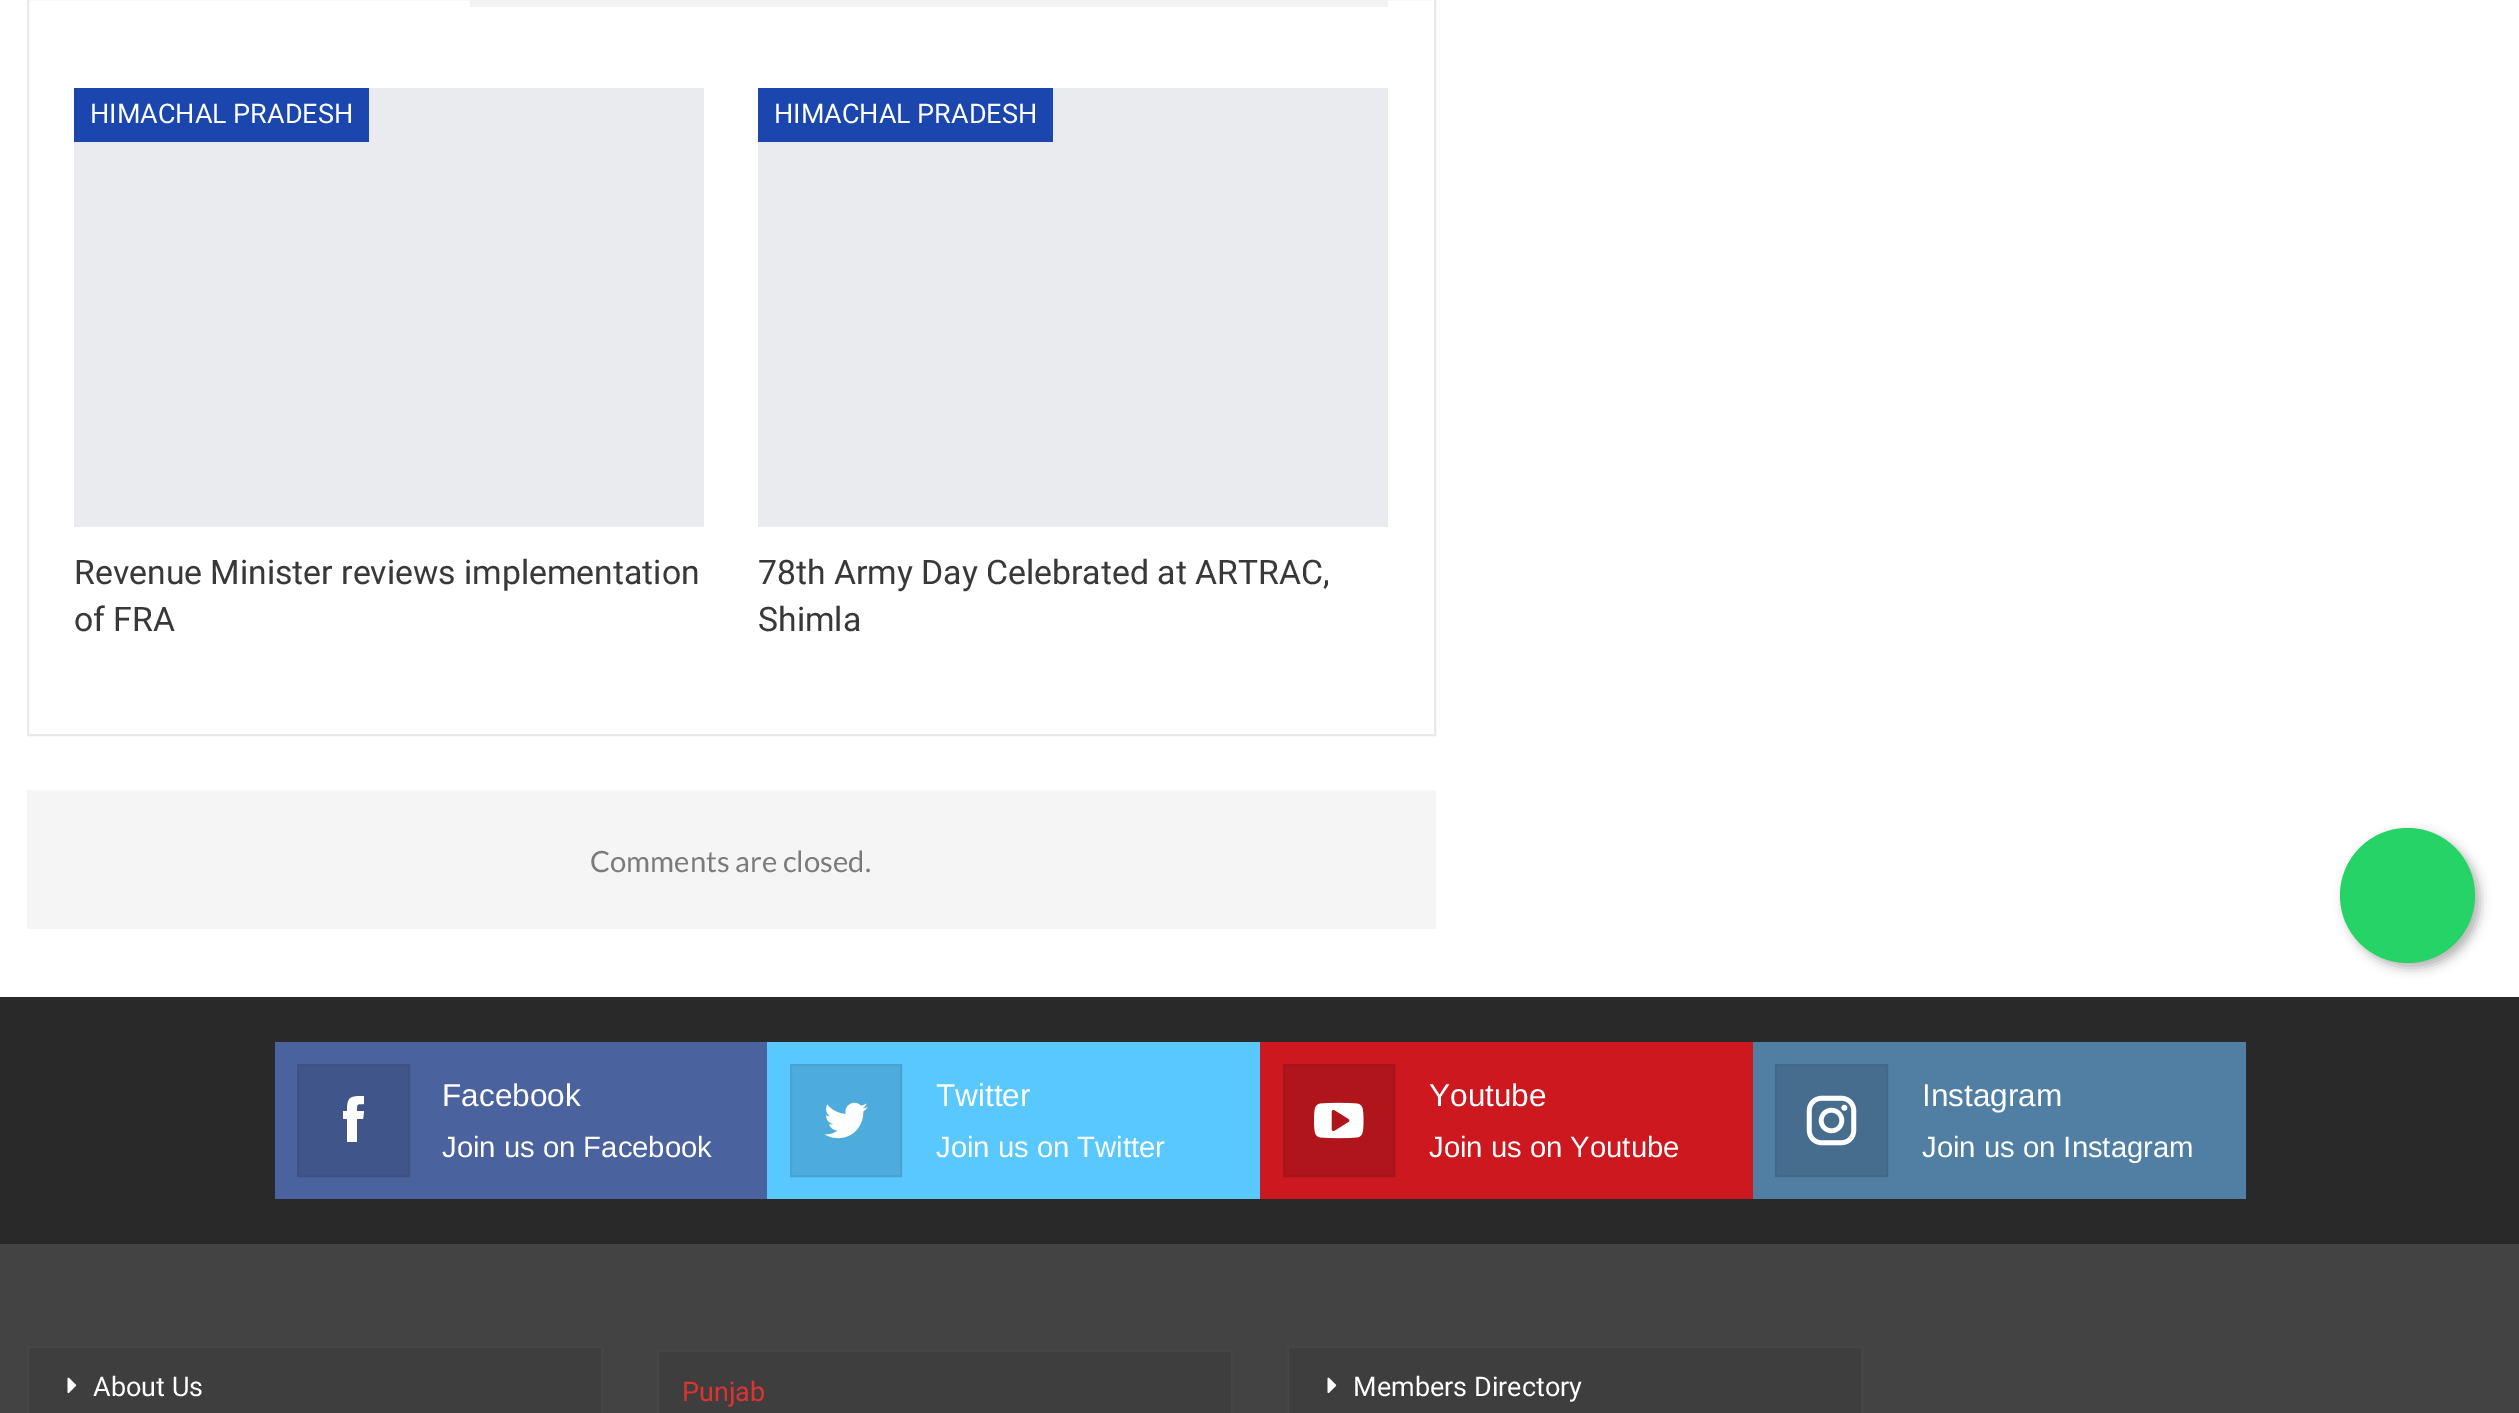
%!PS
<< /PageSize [2519 1413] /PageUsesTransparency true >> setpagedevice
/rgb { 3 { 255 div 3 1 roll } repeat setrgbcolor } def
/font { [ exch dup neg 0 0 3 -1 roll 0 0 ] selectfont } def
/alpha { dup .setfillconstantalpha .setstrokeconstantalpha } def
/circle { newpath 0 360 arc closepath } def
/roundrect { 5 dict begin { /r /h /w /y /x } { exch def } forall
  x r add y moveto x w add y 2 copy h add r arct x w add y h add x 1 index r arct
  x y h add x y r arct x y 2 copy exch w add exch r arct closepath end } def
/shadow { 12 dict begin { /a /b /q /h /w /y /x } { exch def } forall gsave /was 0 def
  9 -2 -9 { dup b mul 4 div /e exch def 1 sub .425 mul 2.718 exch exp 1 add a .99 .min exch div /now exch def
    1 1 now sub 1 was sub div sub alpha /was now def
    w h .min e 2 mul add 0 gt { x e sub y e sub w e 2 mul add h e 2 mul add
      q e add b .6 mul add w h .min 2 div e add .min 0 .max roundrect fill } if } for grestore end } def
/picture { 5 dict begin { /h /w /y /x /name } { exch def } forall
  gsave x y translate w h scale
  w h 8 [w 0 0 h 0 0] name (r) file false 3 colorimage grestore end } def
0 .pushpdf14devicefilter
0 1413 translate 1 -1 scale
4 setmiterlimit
255 255 255 rgb
0 0 2519 1413 rectfill
232 232 232 rgb
2 setlinewidth
28 -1 1407 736 rectstroke
[
  [470 0 918 7 242 242 242]
  [74 88 630 439 233 235 238]
  [74 88 295 54 26 70 173]
  [758 88 630 439 233 235 238]
  [758 88 295 54 26 70 173]
  [27 790 1409 139 245 245 245]
  [0 1244 2519 169 67 67 67]
  [0 997 2519 247 41 41 41]
  [275 1042 492 157 74 99 159]
] { aload pop rgb rectfill } forall
64 85 137 rgb
298 1065 moveto 409 1065 lineto 409 1176 lineto 298 1176 lineto closepath gsave fill grestore
61 81 130 rgb
stroke
255 255 255 rgb
357 1111 moveto 357 1104 356 1104 364 1104 curveto 364 1096 lineto 350 1096 347 1097 347 1111 curveto 343 1111 lineto 343 1119 lineto 347 1119 lineto 347 1142 lineto 357 1142 lineto 357 1119 lineto 363 1119 lineto 364 1111 lineto closepath fill
89 200 255 rgb
767 1042 493 157 rectfill
77 172 219 rgb
791 1065 moveto 901 1065 lineto 901 1176 lineto 791 1176 lineto closepath gsave fill grestore
73 163 208 rgb
stroke
(img/1.rgb) 824 1102 44 37 picture
204 24 30 rgb
1260 1042 493 157 rectfill
175 21 26 rgb
1284 1065 moveto 1394 1065 lineto 1394 1176 lineto 1284 1176 lineto closepath gsave fill grestore
166 20 25 rgb
stroke
(img/2.rgb) 1314 1102 50 37 picture
81 127 164 rgb
1753 1042 493 157 rectfill
70 109 141 rgb
1776 1065 moveto 1887 1065 lineto 1887 1176 lineto 1776 1176 lineto closepath gsave fill grestore
67 104 134 rgb
stroke
(img/3.rgb) 1806 1095 51 51 picture
62 62 62 rgb
28 1347 moveto 602 1347 lineto 602 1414 lineto 28 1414 lineto closepath gsave fill grestore
70 70 70 rgb
stroke
(img/4.rgb) 67 1377 10 17 picture
62 62 62 rgb
658 1351 moveto 1232 1351 lineto 1232 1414 lineto 658 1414 lineto closepath gsave fill grestore
70 70 70 rgb
stroke
62 62 62 rgb
1288 1347 moveto 1862 1347 lineto 1862 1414 lineto 1288 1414 lineto closepath gsave fill grestore
70 70 70 rgb
stroke
(img/4.rgb) 1327 1377 10 17 picture
0 0 0 rgb
2345 833 135 135 67.5 5.5 0.3 shadow
37 211 102 rgb
2407.5 895.5 67.5 circle fill
/Roboto-Regular 27 font
255 255 255 rgb
90 123 moveto (HIMACHAL PRADESH) show
/Roboto-Regular 33.75 font
56 56 56 rgb
74 584 moveto (Revenue Minister reviews implementation) show
74 631 moveto (of FRA) show
/Roboto-Regular 27 font
255 255 255 rgb
774 123 moveto (HIMACHAL PRADESH) show
/Roboto-Regular 33.75 font
56 56 56 rgb
758 584 moveto (78th Army Day Celebrated at ARTRAC,) show
758 631 moveto (Shimla) show
/Lato-Regular 29.25 font
123 123 123 rgb
590 872 moveto (Comments are closed.) show
/LiberationSans-Regular 31.5 font
255 255 255 rgb
442 1106 moveto (Facebook) show
/LiberationSans-Regular 29.25 font
442 1157 moveto (Join us on Facebook) show
/LiberationSans-Regular 31.5 font
936 1106 moveto (Twitter) show
/LiberationSans-Regular 29.25 font
936 1157 moveto (Join us on Twitter) show
/LiberationSans-Regular 31.5 font
1429 1106 moveto (Youtube) show
/LiberationSans-Regular 29.25 font
1429 1157 moveto (Join us on Youtube) show
/LiberationSans-Regular 31.5 font
1922 1106 moveto (Instagram) show
/LiberationSans-Regular 29.25 font
1922 1157 moveto (Join us on Instagram) show
/Roboto-Regular 27 font
93 1396 moveto (About Us) show
221 51 51 rgb
682 1401 moveto (Punjab) show
255 255 255 rgb
1353 1396 moveto (Members Directory) show
.poppdf14devicefilter showpage
